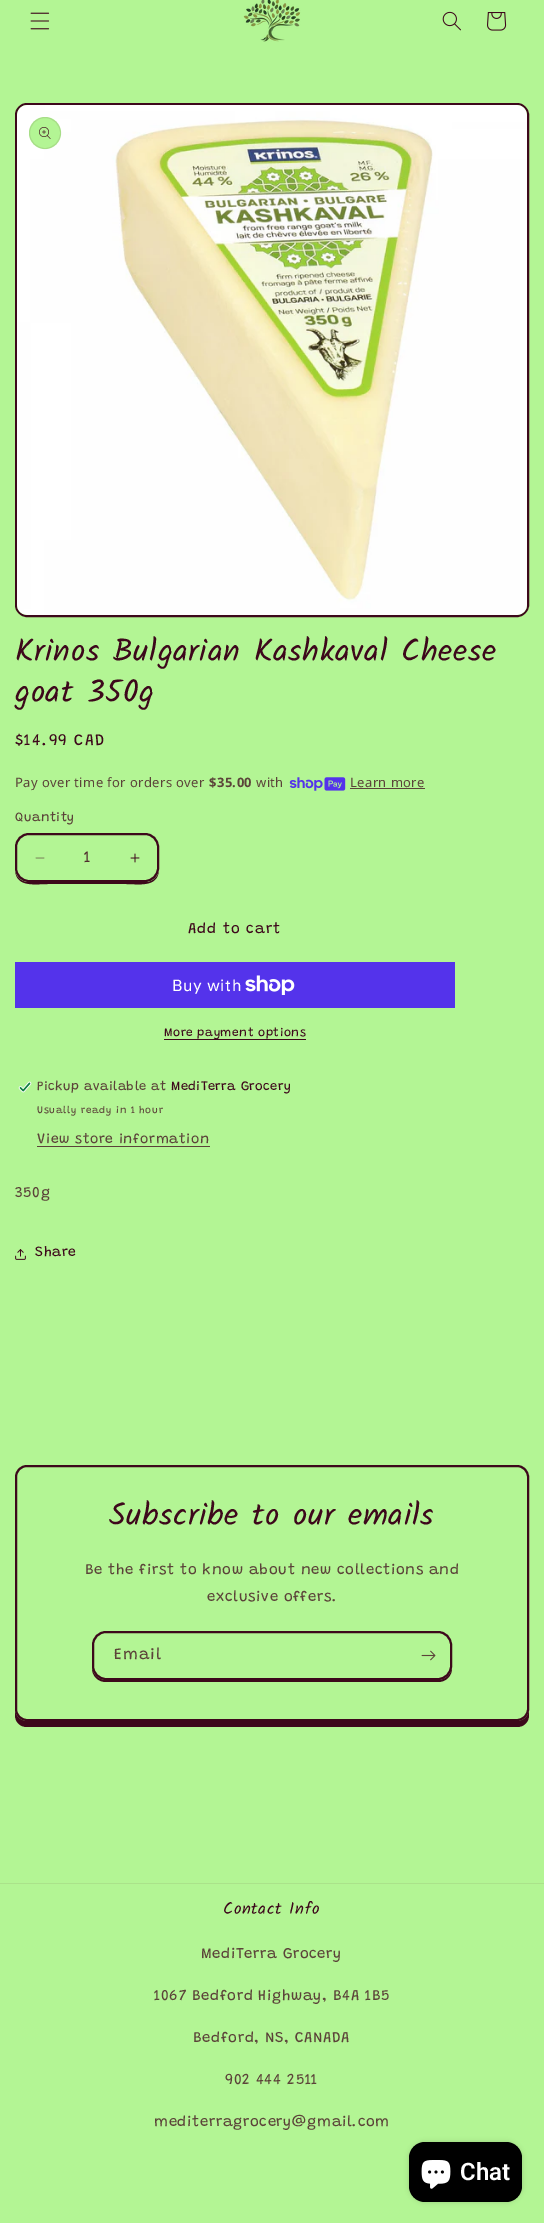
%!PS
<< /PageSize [544 2223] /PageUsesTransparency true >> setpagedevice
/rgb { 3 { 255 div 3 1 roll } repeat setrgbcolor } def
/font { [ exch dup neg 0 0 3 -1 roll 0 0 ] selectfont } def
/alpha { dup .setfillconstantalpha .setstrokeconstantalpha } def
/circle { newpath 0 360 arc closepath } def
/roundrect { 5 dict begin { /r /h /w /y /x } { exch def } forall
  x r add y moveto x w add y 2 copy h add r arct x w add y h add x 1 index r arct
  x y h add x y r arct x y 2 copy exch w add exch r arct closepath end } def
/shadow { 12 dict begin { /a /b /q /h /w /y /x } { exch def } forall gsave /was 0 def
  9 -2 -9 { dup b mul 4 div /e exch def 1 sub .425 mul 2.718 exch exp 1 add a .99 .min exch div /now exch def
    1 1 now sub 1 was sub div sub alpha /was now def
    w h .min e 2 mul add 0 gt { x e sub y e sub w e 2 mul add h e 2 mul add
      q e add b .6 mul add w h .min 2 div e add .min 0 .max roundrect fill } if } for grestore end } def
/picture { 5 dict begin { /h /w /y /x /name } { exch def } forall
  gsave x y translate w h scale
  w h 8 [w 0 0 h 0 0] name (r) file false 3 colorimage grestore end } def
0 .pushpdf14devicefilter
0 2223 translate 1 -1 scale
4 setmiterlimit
179 245 148 rgb
0 0 544 2223 rectfill
(img/1.rgb) 30 12 20 18 picture
(img/2.rgb) 243 0 58 42 picture
(img/3.rgb) 442 11 19 20 picture
(img/4.rgb) 487 12 20 19 picture
61 8 27 rgb
2 setlinewidth
16 104 512 512 11 roundrect stroke
(img/5.rgb) 17 105 510 510 picture
179 245 148 rgb
45 133 16 circle fill
0.1 alpha
61 8 27 rgb
1 setlinewidth
45 133 15.5 circle stroke
1 alpha
(img/6.rgb) 39 127 12 12 picture
(img/7.rgb) 289 777 57 14 picture
91 67 57 rgb
350 788 75 1 rectfill
61 8 27 rgb
15 868 moveto 15 888 34 884 48 884 curveto 126 884 lineto 140 884 159 888 159 868 curveto 159 876 153 882 145 882 curveto 29 882 lineto 21 882 15 876 15 868 curveto closepath fill
179 245 148 rgb
15 833 144 49 14 roundrect fill
(img/8.rgb) 35 857 10 2 picture
(img/9.rgb) 130 853 10 10 picture
61 8 27 rgb
2 setlinewidth
16 834 142 47 13 roundrect stroke
84 51 235 rgb
15 962 440 46 rectfill
(img/10.rgb) 245 975 50 20 picture
61 8 27 rgb
164 1039 142 1 rectfill
(img/11.rgb) 18 1081 14 12 picture
91 67 57 rgb
37 1146 173 1 rectfill
(img/12.rgb) 15 1249 11 11 picture
61 8 27 rgb
16 1466 512 254 11 roundrect stroke
92 1666 moveto 92 1668 lineto 92 1676 98 1682 106 1682 curveto 438 1682 lineto 446 1682 452 1676 452 1668 curveto 452 1666 lineto 452 1674 446 1680 438 1680 curveto 106 1680 lineto 98 1680 92 1674 92 1666 curveto closepath fill
93 1632 358 47 13 roundrect stroke
(img/13.rgb) 421 1650 15 11 picture
15 1709 moveto 15 1715 lineto 15 1722 20 1727 27 1727 curveto 517 1727 lineto 524 1727 529 1722 529 1715 curveto 529 1709 lineto 529 1716 524 1721 517 1721 curveto 27 1721 lineto 20 1721 15 1716 15 1709 curveto closepath fill
170 226 138 rgb
0 1883 544 1 rectfill
0 0 0 rgb
409 2142 113 60 16 2.5 0.15 shadow
409 2142 113 60 16 roundrect fill
(img/14.rgb) 421 2160 30 29 picture
/Kalam-Regular 31.5 font
61 8 27 rgb
15 661 moveto 0.6 0 (Krinos Bulgarian Kashkaval Cheese) ashow
15 702 moveto 0.6 0 (goat 350g) ashow
/Grandstander-Regular 16 font
15 745 moveto 1.25 0 ($14.99 CAD) ashow
/NotoSans-Regular 13 font
91 67 57 rgb
15 787 moveto 0.4 0 (Pay over time for orders over) ashow
/NotoSans-Bold 13 font
209 787 moveto 0.4 0 ($35.00) ashow
/NotoSans-Regular 13 font
256 787 moveto 0.4 0 (with) ashow
350 787 moveto 0.4 0 (Learn more) ashow
/Grandstander-Regular 13 font
15 821 moveto 0.4 0 (Quantity) ashow
/Grandstander-Regular 16 font
79 44 45 rgb
84 862 moveto (1) show
/Grandstander-Regular 15 font
61 8 27 rgb
188 933 moveto 1 0 (Add to cart) ashow
/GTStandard-Regular 16 font
255 255 255 rgb
172 991 moveto 0.6 0 (Buy with) ashow
/Grandstander-Regular 12 font
61 8 27 rgb
164 1036 moveto 0.5 0 (More payment options) ashow
/Grandstander-Regular 13 font
91 67 57 rgb
37 1090 moveto 0.4 0 (Pickup available at) ashow
61 8 27 rgb
171 1090 moveto 0.4 0 (MediTerra Grocery) ashow
/Grandstander-Regular 10 font
91 67 57 rgb
37 1113 moveto 0.7 0 (Usually ready in 1 hour) ashow
/Grandstander-Regular 14 font
37 1143 moveto 0.6 0 (View store information) ashow
/Grandstander-Regular 15 font
15 1197 moveto 0.6 0 (350g) ashow
/Grandstander-Regular 14 font
61 8 27 rgb
35 1256 moveto 0.6 0 (Share) ashow
/Kalam-Regular 31.5 font
109 1525 moveto 0.6 0 (Subscribe to our emails) ashow
/Grandstander-Regular 15 font
91 67 57 rgb
85 1574 moveto 0.6 0 (Be the first to know about new collections and) ashow
207 1601 moveto 0.6 0 (exclusive offers.) ashow
/Grandstander-Regular 16 font
114 1659 moveto 1 0 (Email) ashow
/Kalam-Regular 16.75 font
61 8 27 rgb
223 1914 moveto 0.6 0 (Contact Info) ashow
/Grandstander-Regular 15 font
91 67 57 rgb
201 1958 moveto 0.6 0 (MediTerra Grocery) ashow
154 2000 moveto 0.6 0 (1067 Bedford Highway, B4A 1B5) ashow
193 2042 moveto 0.6 0 (Bedford, NS, CANADA) ashow
225 2084 moveto 0.6 0 (902 444 2511) ashow
154 2126 moveto 0.6 0 (mediterragrocery@gmail.com) ashow
/Roboto-SemiBold 24 font
255 255 255 rgb
460 2180 moveto (Chat) show
.poppdf14devicefilter showpage
